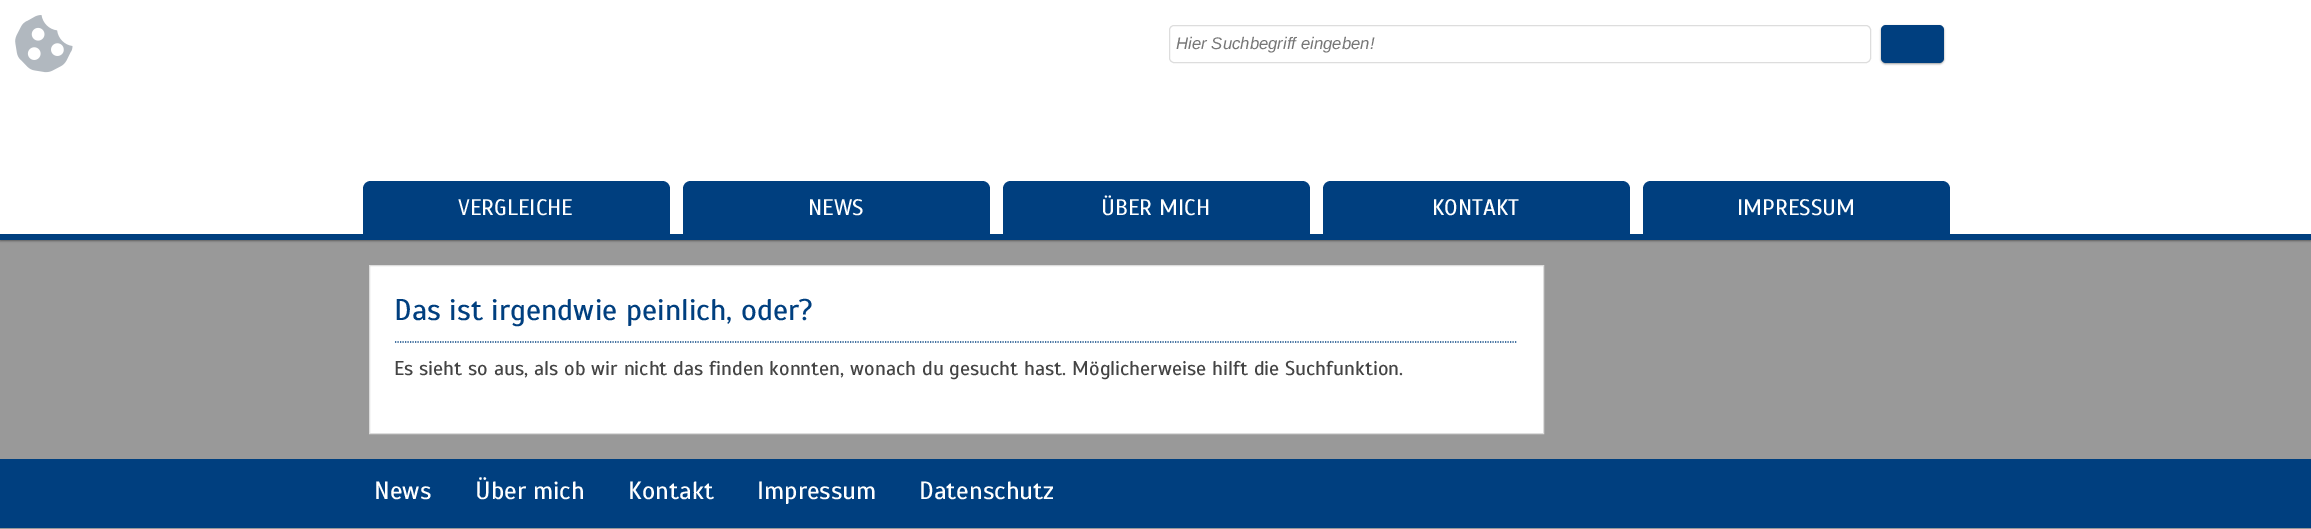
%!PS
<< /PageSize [2311 529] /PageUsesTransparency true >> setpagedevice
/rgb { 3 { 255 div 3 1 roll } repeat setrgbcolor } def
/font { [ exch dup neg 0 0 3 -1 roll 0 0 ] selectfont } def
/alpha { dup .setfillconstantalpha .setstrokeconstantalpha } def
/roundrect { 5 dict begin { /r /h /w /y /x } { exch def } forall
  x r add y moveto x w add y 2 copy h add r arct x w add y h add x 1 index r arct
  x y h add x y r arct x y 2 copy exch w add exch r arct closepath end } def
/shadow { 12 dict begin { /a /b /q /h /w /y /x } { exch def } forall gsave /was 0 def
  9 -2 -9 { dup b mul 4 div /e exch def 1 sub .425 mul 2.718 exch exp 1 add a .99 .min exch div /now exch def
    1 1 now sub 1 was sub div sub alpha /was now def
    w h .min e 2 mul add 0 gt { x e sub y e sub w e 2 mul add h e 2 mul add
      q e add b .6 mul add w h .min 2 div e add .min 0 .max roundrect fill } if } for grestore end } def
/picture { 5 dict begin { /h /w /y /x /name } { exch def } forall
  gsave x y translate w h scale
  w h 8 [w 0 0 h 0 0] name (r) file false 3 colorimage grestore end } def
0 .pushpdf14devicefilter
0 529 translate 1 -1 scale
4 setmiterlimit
153 153 153 rgb
0 0 2311 529 rectfill
0 0 0 rgb
0 1 2311 240 0 1 0.4 shadow
255 255 255 rgb
0 0 2311 234 rectfill
(img/1.rgb) 15 15 58 58 picture
221 221 221 rgb
1169.5 25.5 701 37 4.5 roundrect stroke
0 0 0 rgb
1881 26 63 38 5 1 0.4 shadow
0 63 127 rgb
1881 25 63 38 5 roundrect fill
0 234 2311 6 rectfill
371 181 moveto 662 181 lineto 666.5 181 670 184.5 670 189 curveto 670 234 lineto 363 234 lineto 363 189 lineto 363 184.5 366.5 181 371 181 curveto closepath fill
691 181 moveto 982 181 lineto 986.5 181 990 184.5 990 189 curveto 990 234 lineto 683 234 lineto 683 189 lineto 683 184.5 686.5 181 691 181 curveto closepath fill
1011 181 moveto 1302 181 lineto 1306.5 181 1310 184.5 1310 189 curveto 1310 234 lineto 1003 234 lineto 1003 189 lineto 1003 184.5 1006.5 181 1011 181 curveto closepath fill
1331 181 moveto 1622 181 lineto 1626.5 181 1630 184.5 1630 189 curveto 1630 234 lineto 1323 234 lineto 1323 189 lineto 1323 184.5 1326.5 181 1331 181 curveto closepath fill
1651 181 moveto 1942 181 lineto 1946.5 181 1950 184.5 1950 189 curveto 1950 234 lineto 1643 234 lineto 1643 189 lineto 1643 184.5 1646.5 181 1651 181 curveto closepath fill
255 255 255 rgb
369.5 265.5 moveto 1543.5 265.5 lineto 1543.5 433.5 lineto 369.5 433.5 lineto closepath gsave fill grestore
221 221 221 rgb
stroke
0 63 127 rgb
1.2 setlinewidth
[1.25 1.25] 0 setdash
395 342 moveto 1517.5 342 lineto stroke
0 459 2311 69 rectfill
/LiberationSans-Italic 16.75 font
119 119 119 rgb
1176 49 moveto (Hier Suchbegriff eingeben!) show
/Scada-Regular 22.5 font
255 255 255 rgb
[
  [(VERGLEICHE) 458 215]
  [(NEWS) 808 215]
  [(ÜBER MICH) 1101 215]
  [(KONTAKT) 1432 215]
  [(IMPRESSUM) 1737 215]
] { aload pop moveto show } forall
/Scada-Regular 30 font
0 63 127 rgb
394 320 moveto (Das ist irgendwie peinlich, oder?) show
/Scada-Regular 20 font
68 68 68 rgb
394 375 moveto (Es sieht so aus, als ob wir nicht das finden konnten, wonach du gesucht hast. Möglicherweise hilft die Suchfunktion.) show
/Scada-Regular 25 font
255 255 255 rgb
[
  [(News) 374 499]
  [(Über mich) 475 499]
  [(Kontakt) 628 499]
  [(Impressum) 757 499]
  [(Datenschutz) 919 499]
] { aload pop moveto show } forall
.poppdf14devicefilter showpage
